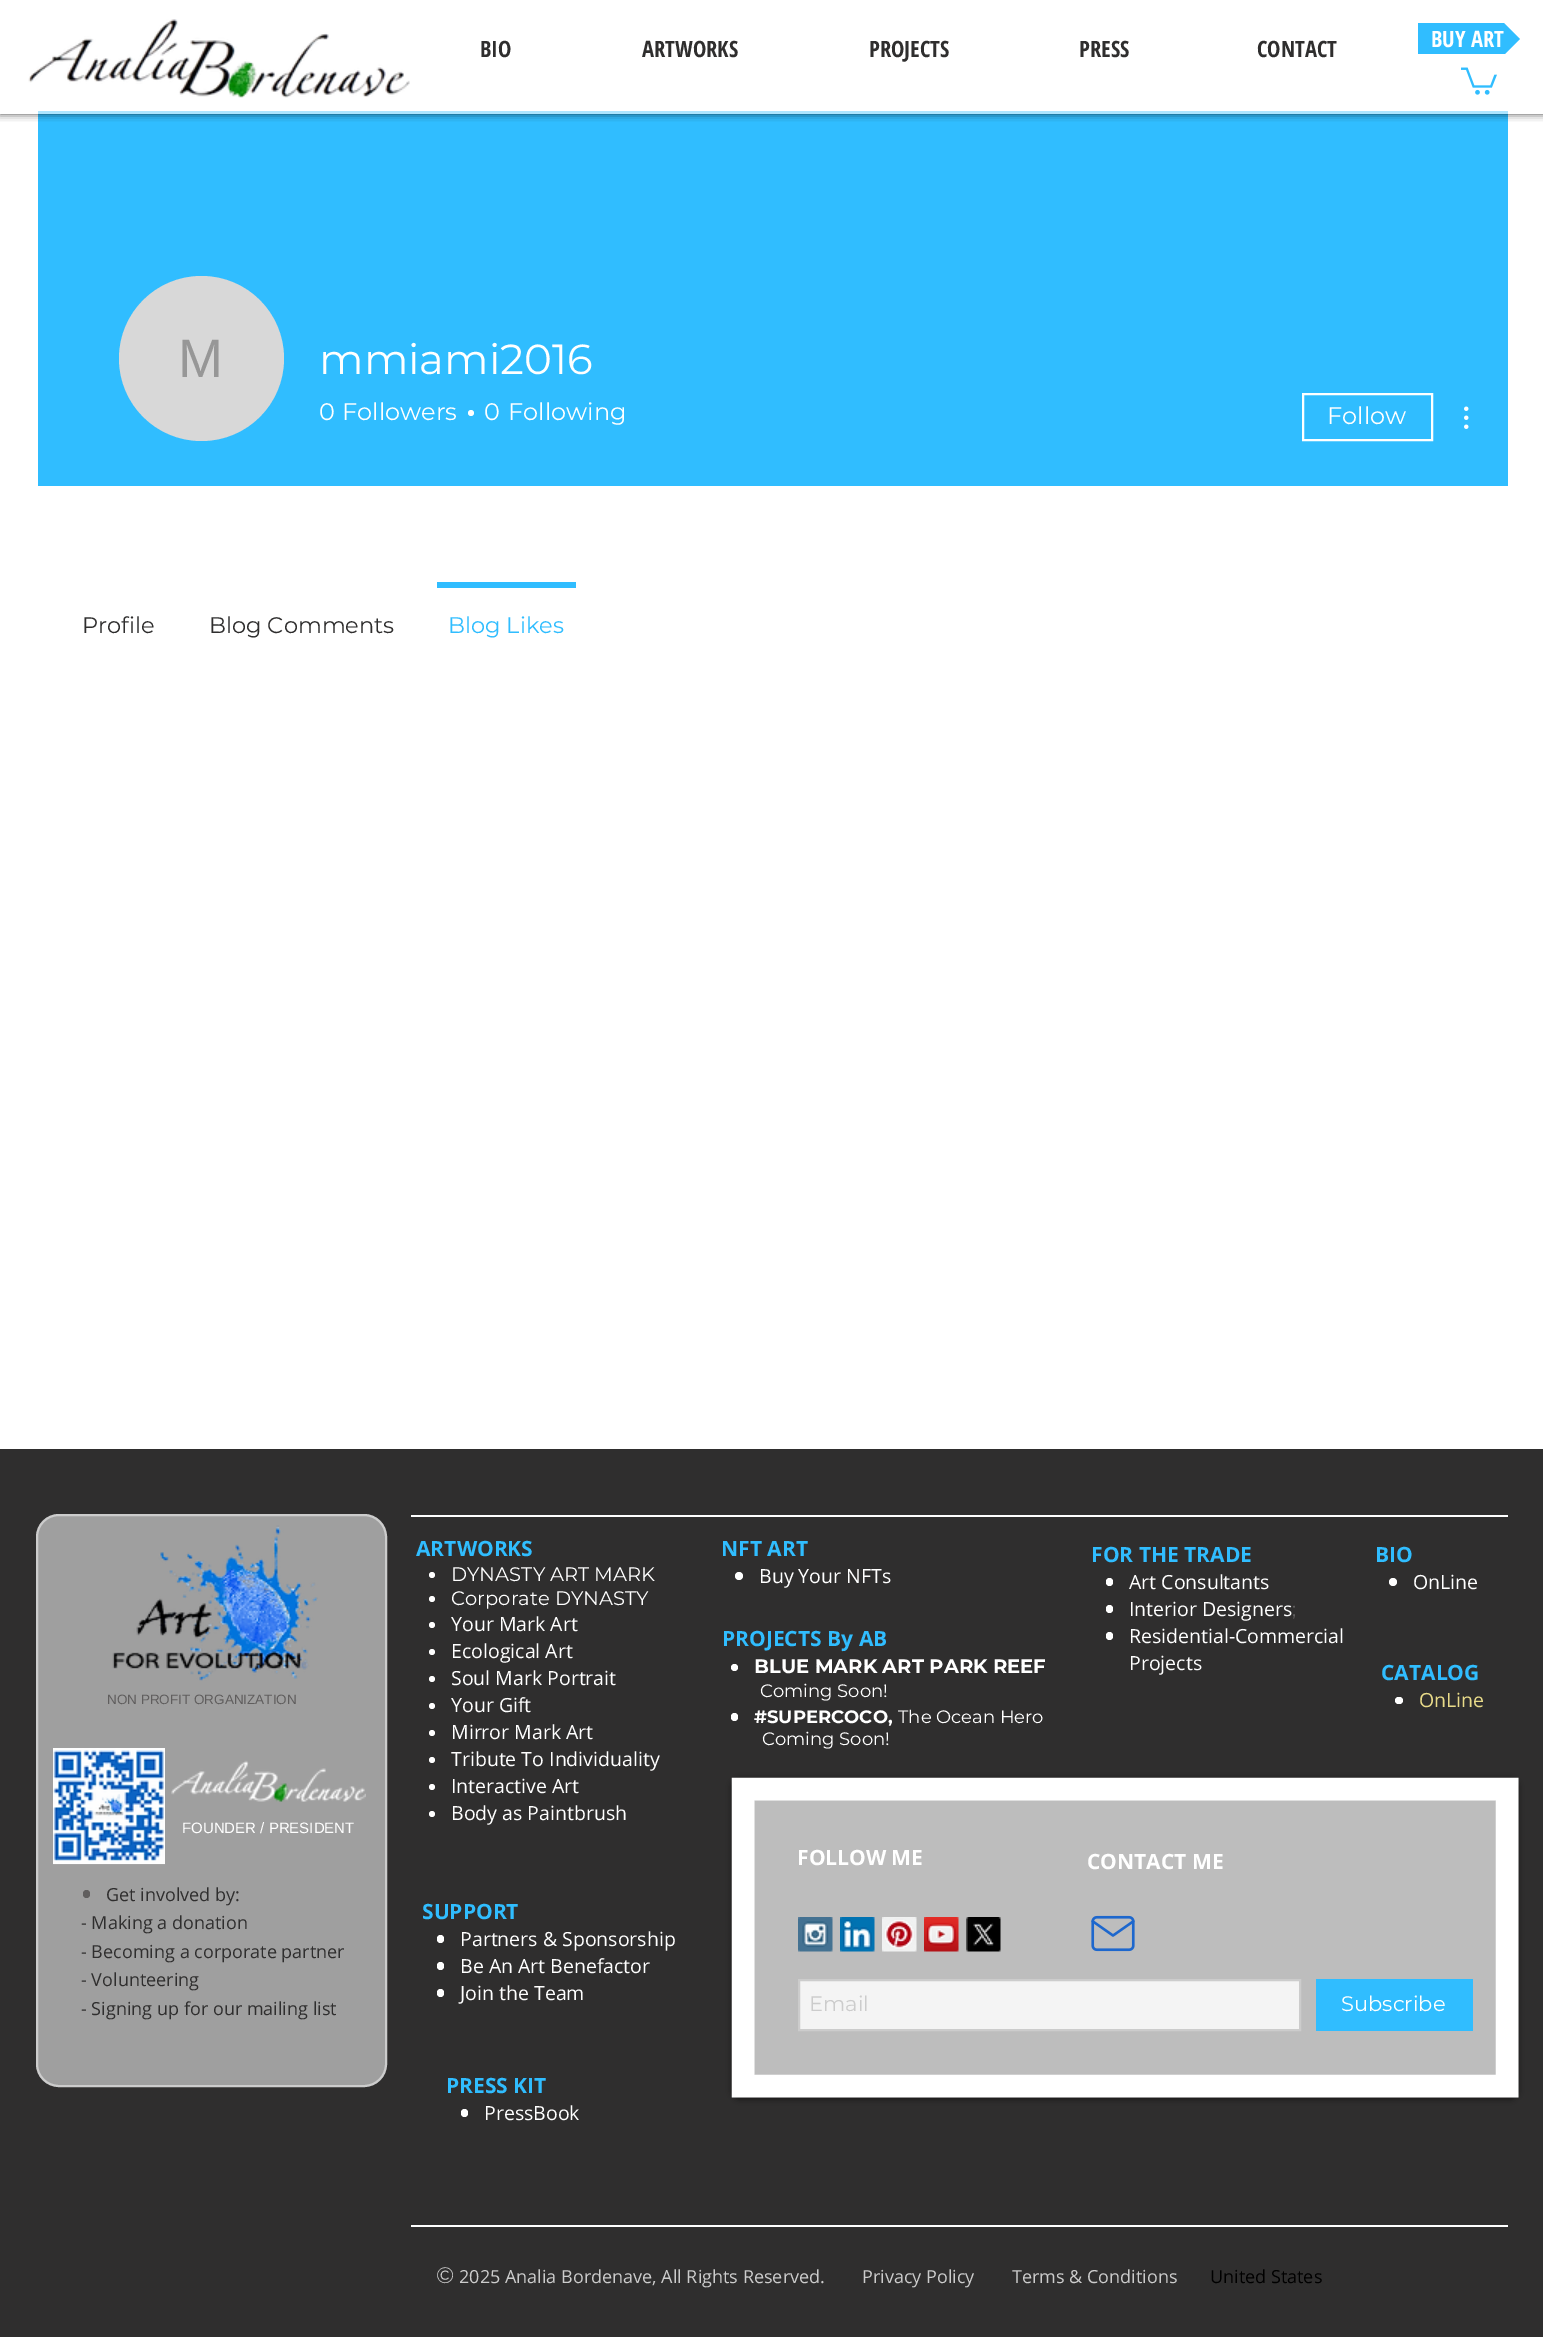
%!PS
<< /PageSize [1543 2342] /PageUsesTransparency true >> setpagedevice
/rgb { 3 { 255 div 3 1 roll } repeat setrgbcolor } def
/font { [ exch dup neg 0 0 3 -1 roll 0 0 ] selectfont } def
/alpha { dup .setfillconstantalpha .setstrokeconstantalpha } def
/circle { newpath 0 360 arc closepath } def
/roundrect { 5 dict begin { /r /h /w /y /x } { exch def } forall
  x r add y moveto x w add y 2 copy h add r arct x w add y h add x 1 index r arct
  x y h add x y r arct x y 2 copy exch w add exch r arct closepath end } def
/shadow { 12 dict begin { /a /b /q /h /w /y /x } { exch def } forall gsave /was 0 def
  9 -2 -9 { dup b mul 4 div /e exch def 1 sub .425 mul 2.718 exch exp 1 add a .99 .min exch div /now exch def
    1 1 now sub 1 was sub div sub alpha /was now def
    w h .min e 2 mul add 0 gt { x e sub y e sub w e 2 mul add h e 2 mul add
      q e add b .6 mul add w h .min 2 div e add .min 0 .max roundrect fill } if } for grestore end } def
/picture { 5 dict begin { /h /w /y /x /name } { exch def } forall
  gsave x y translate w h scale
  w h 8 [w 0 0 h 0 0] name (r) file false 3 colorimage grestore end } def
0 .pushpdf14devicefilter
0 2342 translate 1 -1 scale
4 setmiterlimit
255 255 255 rgb
0 0 1543 2342 rectfill
48 189 255 rgb
38 114 1470 372 rectfill
172 229 255 rgb
38 111 1470 3 rectfill
gsave
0 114 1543 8 rectclip
0 0 0 rgb
0 0 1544 114 0 4 0.7 shadow
grestore
(img/1.rgb) 28 19 382 79 picture
48 189 255 rgb
1418 23 26 31 rectfill
gsave
1418 23 102 31 rectclip
1520 39 moveto 1444 39 lineto 1444 -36 lineto closepath fill
1444 39 moveto 1520 39 lineto 1444 114 lineto closepath fill
grestore
(img/2.rgb) 1461 67 36 28 picture
216 216 216 rgb
201.5 358.5 82.5 circle fill
255 255 255 rgb
471 413 3 circle fill
2 setlinewidth
1303 394 129 46 rectstroke
(img/3.rgb) 1464 406 5 23 picture
[
  [437 582 139 6 48 189 255]
  [0 1449 1543 888 47 46 46]
  [411 1515 1097 2 255 255 255]
] { aload pop rgb rectfill } forall
432 1575 3 circle fill
432 1599 3 circle fill
432 1625 3 circle fill
432 1652 3 circle fill
432 1679 3 circle fill
432 1706 3 circle fill
432 1733 3 circle fill
432 1760 3 circle fill
432 1787 3 circle fill
432 1814 3 circle fill
739 1576 4 circle fill
1106 1578 7 8 3.5 roundrect fill
1106 1605 7 8 3.5 roundrect fill
1106 1632 7 8 3.5 roundrect fill
1393 1582 4 circle fill
734.5 1667.5 3.5 circle fill
731 1713 7 8 3.5 roundrect fill
1395 1697 8 7 3.5 roundrect fill
159 159 159 rgb
37 1515 349 571 22 roundrect gsave fill grestore
204 204 204 rgb
stroke
(img/4.rgb) 112 1525 206 156 picture
(img/5.rgb) 53 1748 112 117 picture
(img/6.rgb) 171 1760 195 42 picture
96 94 94 rgb
83 1890 7 8 3.5 roundrect fill
255 255 255 rgb
437 1935 7 8 3.5 roundrect fill
437 1962 7 8 3.5 roundrect fill
437 1989 7 8 3.5 roundrect fill
0 0 0 rgb
732 1779 786 320 8 3 0.6 shadow
189 189 189 rgb
754 1800 742 275 rectfill
255 255 255 rgb
22.5 setlinewidth
743 1789 moveto 1507 1789 lineto 1507 2086 lineto 743 2086 lineto closepath stroke
(img/7.rgb) 798 1917 35 35 picture
(img/8.rgb) 840 1917 35 35 picture
(img/9.rgb) 882 1917 35 35 picture
(img/10.rgb) 924 1917 35 35 picture
(img/11.rgb) 966 1917 35 35 picture
(img/12.rgb) 1091 1915 44 37 picture
244 244 244 rgb
799 1980 moveto 1300 1980 lineto 1300 2030 lineto 799 2030 lineto closepath gsave fill grestore
204 204 204 rgb
2 setlinewidth
stroke
48 189 255 rgb
1316 1979 157 52 rectfill
255 255 255 rgb
461 2109 7 8 3.5 roundrect fill
411 2225 1097 2 rectfill
/OpenSansCondensed-Bold 22.5 font
47 46 46 rgb
[
  [(BIO) 480 57]
  [(ARTWORKS) 642 57]
  [(PROJECTS) 869 57]
  [(PRESS) 1079 57]
  [(CONTACT) 1257 57]
] { aload pop moveto show } forall
255 255 255 rgb
1431 47 moveto (BUY ART) show
/LiberationSans-Regular 54 font
151 151 151 rgb
178 377 moveto (M) show
/Montserrat-Regular 42 font
255 255 255 rgb
319 374 moveto (mmiami2016) show
/Montserrat-Regular 24 font
[
  [(0) 319 420]
  [(Followers) 342 420]
  [(0) 484 420]
  [(Following) 508 420]
  [(Follow) 1327 424]
] { aload pop moveto show } forall
/Montserrat-Regular 22.5 font
47 46 46 rgb
82 633 moveto (Profile) show
209 633 moveto (Blog Comments) show
48 189 255 rgb
448 633 moveto (Blog Likes) show
/OpenSans-Bold 21 font
416 1556 moveto (ARTWORKS) show
/Montserrat-Regular 19.5 font
255 255 255 rgb
451 1581 moveto (DYNASTY ART MARK) show
451 1605 moveto (Corporate DYNASTY) show
/OpenSans-Regular 19.5 font
[
  [(Your Mark Art) 451 1631]
  [(Ecological Art) 451 1658]
  [(Soul Mark Portrait) 451 1685]
  [(Your Gift) 451 1712]
  [(Mirror Mark Art) 451 1739]
  [(Tribute To Individuality) 451 1766]
  [(Interactive Art) 451 1793]
  [(Body as Paintbrush) 451 1820]
] { aload pop moveto show } forall
/OpenSans-Bold 21 font
48 189 255 rgb
721 1556 moveto (NFT ART) show
/OpenSans-Regular 19.5 font
255 255 255 rgb
759 1583 moveto (Buy Your NFTs) show
/OpenSans-Bold 21 font
48 189 255 rgb
1091 1562 moveto (FOR THE TRADE) show
/OpenSans-Regular 19.5 font
255 255 255 rgb
1129 1589 moveto (Art Consultants) show
1129 1616 moveto (Interior Designers) show
/Montserrat-Regular 19.5 font
96 94 94 rgb
1292 1616 moveto (;) show
/OpenSans-Regular 19.5 font
255 255 255 rgb
1129 1643 moveto (Residential-Commercial) show
1129 1670 moveto (Projects) show
/OpenSans-Bold 21 font
48 189 255 rgb
1375 1562 moveto (BIO) show
/OpenSans-Regular 19.5 font
255 255 255 rgb
1413 1589 moveto (OnLine) show
/OpenSans-Bold 21 font
48 189 255 rgb
722 1646 moveto (PROJECTS By AB) show
/Montserrat-Bold 19.5 font
255 255 255 rgb
754 1673 moveto (BLUE MARK ART PARK REEF) show
/Montserrat-Regular 18 font
760 1697 moveto (Coming Soon!) show
/Montserrat-Bold 18 font
754 1723 moveto (#SUPERCOCO,) show
/Montserrat-Regular 18 font
898 1723 moveto (The Ocean Hero) show
762 1745 moveto (Coming Soon!) show
/OpenSans-Bold 21 font
48 189 255 rgb
1381 1680 moveto (CATALOG) show
/OpenSans-Regular 19.5 font
233 219 137 rgb
1419 1707 moveto (OnLine) show
/LiberationSans-Regular 13.5 font
96 94 94 rgb
107 1704 moveto (NON PROFIT ORGANIZATION) show
/LiberationSans-Regular 15 font
255 255 255 rgb
182 1833 moveto (FOUNDER / PRESIDENT) show
/OpenSans-Regular 18 font
47 46 46 rgb
[
  [(Get involved by:) 106 1901]
  [(- Making a donation) 81 1929]
  [(- Becoming a corporate partner) 81 1958]
  [(- Volunteering) 81 1986]
  [(- Signing up for our mailing list) 81 2015]
] { aload pop moveto show } forall
/OpenSans-Bold 21 font
48 189 255 rgb
422 1919 moveto (SUPPORT) show
/OpenSans-Regular 19.5 font
255 255 255 rgb
[
  [(Partners & Sponsorship) 460 1946]
  [(Be An Art Benefactor) 460 1973]
  [(Join the Team) 460 2000]
] { aload pop moveto show } forall
/OpenSans-Bold 21 font
797 1865 moveto (FOLLOW ME) show
1087 1869 moveto (CONTACT ME) show
/Montserrat-Regular 21 font
204 204 204 rgb
809 2011 moveto (Email) show
255 255 255 rgb
1341 2011 moveto (Subscribe) show
/OpenSans-Bold 21 font
48 189 255 rgb
446 2093 moveto (PRESS KIT) show
/OpenSans-Regular 19.5 font
255 255 255 rgb
484 2120 moveto (PressBook) show
/Montserrat-Regular 22.5 font
204 204 204 rgb
436 2283 moveto (©) show
/OpenSans-Regular 18 font
459 2283 moveto (2025 Analia Bordenave, All Rights Reserved.) show
862 2283 moveto (Privacy Policy        Terms & Conditions) show
0 0 0 rgb
1210 2283 moveto (United States) show
.poppdf14devicefilter showpage
